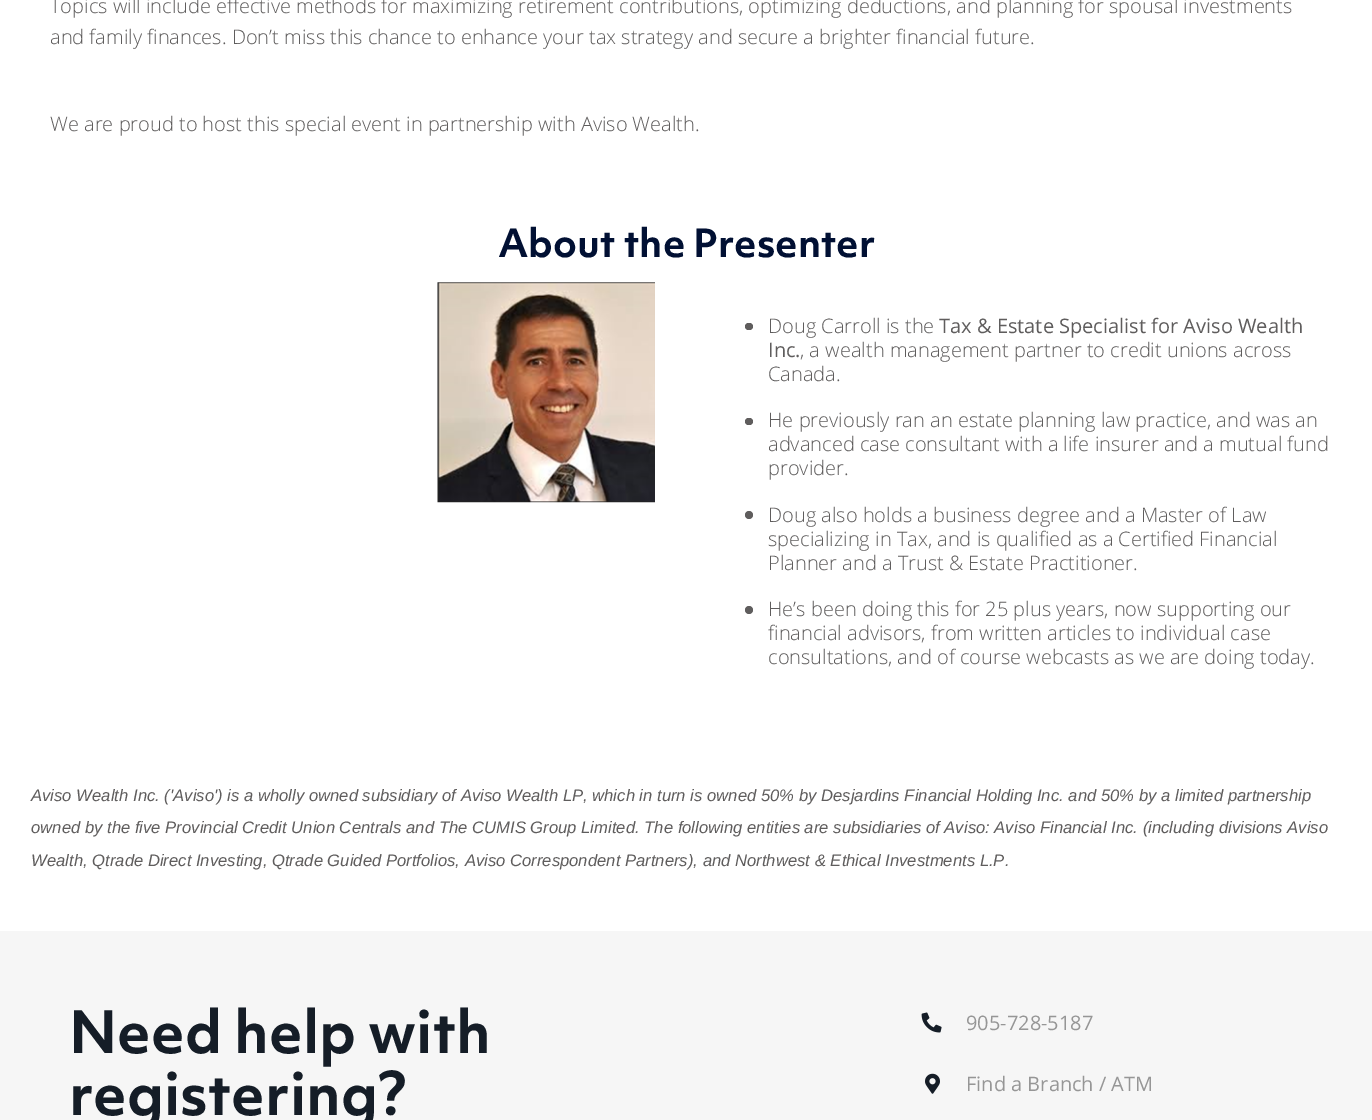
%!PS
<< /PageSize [1372 1120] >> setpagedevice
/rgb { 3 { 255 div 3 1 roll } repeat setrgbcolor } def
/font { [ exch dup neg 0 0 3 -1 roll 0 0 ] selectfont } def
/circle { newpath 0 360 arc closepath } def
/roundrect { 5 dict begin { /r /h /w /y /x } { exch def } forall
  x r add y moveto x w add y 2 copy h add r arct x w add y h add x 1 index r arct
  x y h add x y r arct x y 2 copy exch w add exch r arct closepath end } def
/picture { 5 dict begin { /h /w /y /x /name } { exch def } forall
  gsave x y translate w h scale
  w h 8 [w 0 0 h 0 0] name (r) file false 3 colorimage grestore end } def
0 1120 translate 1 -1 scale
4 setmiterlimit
255 255 255 rgb
0 0 1372 1120 rectfill
(img/1.rgb) 437 282 218 221 picture
95 93 93 rgb
745 323 8 7 3.5 roundrect fill
745 418 8 7 3.5 roundrect fill
749 515 4 circle fill
749 610 4 circle fill
246 246 246 rgb
0 931 1372 189 rectfill
(img/2.rgb) 921 1012 21 21 picture
(img/3.rgb) 925 1073 15 21 picture
/OpenSans-Light 20 font
95 93 93 rgb
[
  [(Topics will include effective methods for maximizing retirement contributions, optimizing deductions, and planning for spousal investments) 50 13]
  [(and family finances. Don’t miss this chance to enhance your tax strategy and secure a brighter financial future.) 50 44]
  [(We are proud to host this special event in partnership with Aviso Wealth.) 50 131]
] { aload pop moveto show } forall
/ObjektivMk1-Bold 37.5 font
1 16 51 rgb
498 257 moveto (About the Presenter) show
/OpenSans-Light 20 font
95 93 93 rgb
768 333 moveto (Doug Carroll is the) show
/OpenSans-Regular 20 font
939 333 moveto (Tax & Estate Specialist for Aviso Wealth) show
768 357 moveto (Inc.) show
/OpenSans-Light 20 font
[
  [(, a wealth management partner to credit unions across) 800 357]
  [(Canada.) 768 381]
  [(He previously ran an estate planning law practice, and was an) 768 427]
  [(advanced case consultant with a life insurer and a mutual fund) 768 451]
  [(provider.) 768 475]
  [(Doug also holds a business degree and a Master of Law) 768 522]
  [(specializing in Tax, and is qualified as a Certified Financial) 768 546]
  [(Planner and a Trust & Estate Practitioner.) 768 570]
  [(He’s been doing this for 25 plus years, now supporting our) 768 616]
  [(financial advisors, from written articles to individual case) 768 640]
  [(consultations, and of course webcasts as we are doing today.) 768 664]
] { aload pop moveto show } forall
/LiberationSans-Italic 16.67 font
[
  [(Aviso Wealth Inc. \('Aviso'\) is a wholly owned subsidiary of Aviso Wealth LP, which in turn is owned 50% by Desjardins Financial Holding Inc. and 50% by a limited partnership) 31 801]
  [(owned by the five Provincial Credit Union Centrals and The CUMIS Group Limited. The following entities are subsidiaries of Aviso: Aviso Financial Inc. \(including divisions Aviso) 31 833]
  [(Wealth, Qtrade Direct Investing, Qtrade Guided Portfolios, Aviso Correspondent Partners\), and Northwest & Ethical Investments L.P.) 31 866]
] { aload pop moveto show } forall
/ObjektivMk1-Bold 56.25 font
21 29 39 rgb
69 1053 moveto (Need help with) show
69 1115 moveto (registering?) show
/OpenSans-Regular 20 font
150 150 150 rgb
966 1030 moveto (905-728-5187) show
966 1091 moveto (Find a Branch / ATM) show
showpage
